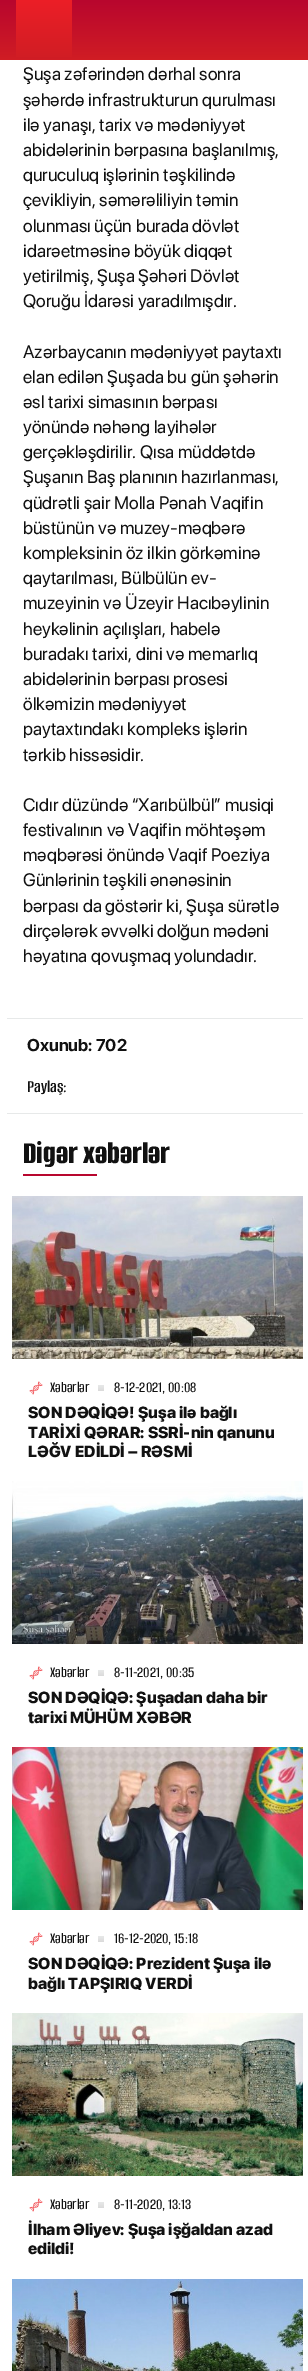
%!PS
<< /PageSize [308 2371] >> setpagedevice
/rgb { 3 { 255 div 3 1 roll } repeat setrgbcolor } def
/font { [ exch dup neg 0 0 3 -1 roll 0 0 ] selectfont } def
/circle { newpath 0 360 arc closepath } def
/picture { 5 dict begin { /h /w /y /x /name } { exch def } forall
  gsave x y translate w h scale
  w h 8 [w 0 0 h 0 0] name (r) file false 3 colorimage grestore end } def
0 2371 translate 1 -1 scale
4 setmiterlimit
255 255 255 rgb
0 0 308 2371 rectfill
gsave 0 0 moveto 308 0 lineto 308 60 lineto 0 60 lineto closepath clip newpath
<< /ShadingType 2 /ColorSpace /DeviceRGB /Coords [154 0 154 60] /Extend [true true] /Function << /FunctionType 2 /Domain [0 1] /C0 [0.722 0.024 0.18] /C1 [0.816 0.114 0.141] /N 1 >> >> shfill grestore
gsave 16 0 moveto 72 0 lineto 72 57 lineto 16 57 lineto closepath clip newpath
<< /ShadingType 2 /ColorSpace /DeviceRGB /Coords [44 0 44 60] /Extend [true true] /Function << /FunctionType 2 /Domain [0 1] /C0 [0.925 0.122 0.153] /C1 [0.816 0.114 0.141] /N 1 >> >> shfill grestore
[
  [7 1018 296 1 231 233 233]
  [7 1113 296 1 231 233 233]
  [23 1174 74 2 184 6 46]
] { aload pop rgb rectfill } forall
(img/1.rgb) 12 1196 291 163 picture
(img/2.rgb) 29 1381 14 14 picture
gsave 101 1388 3 circle clip newpath
<< /ShadingType 2 /ColorSpace /DeviceRGB /Coords [101 1385 101 1391] /Extend [true true] /Function << /FunctionType 2 /Domain [0 1] /C0 [0.906 0.914 0.914] /C1 [0.859 0.859 0.859] /N 1 >> >> shfill grestore
(img/3.rgb) 12 1481 291 163 picture
(img/2.rgb) 29 1666 14 14 picture
gsave 101 1673 3 circle clip newpath
<< /ShadingType 2 /ColorSpace /DeviceRGB /Coords [101 1670 101 1676] /Extend [true true] /Function << /FunctionType 2 /Domain [0 1] /C0 [0.906 0.914 0.914] /C1 [0.859 0.859 0.859] /N 1 >> >> shfill grestore
(img/4.rgb) 12 1747 291 163 picture
(img/2.rgb) 29 1932 14 14 picture
gsave 101 1939 3 circle clip newpath
<< /ShadingType 2 /ColorSpace /DeviceRGB /Coords [101 1936 101 1942] /Extend [true true] /Function << /FunctionType 2 /Domain [0 1] /C0 [0.906 0.914 0.914] /C1 [0.859 0.859 0.859] /N 1 >> >> shfill grestore
(img/5.rgb) 12 2013 291 163 picture
(img/2.rgb) 29 2198 14 14 picture
gsave 101 2205 3 circle clip newpath
<< /ShadingType 2 /ColorSpace /DeviceRGB /Coords [101 2202 101 2208] /Extend [true true] /Function << /FunctionType 2 /Domain [0 1] /C0 [0.906 0.914 0.914] /C1 [0.859 0.859 0.859] /N 1 >> >> shfill grestore
(img/6.rgb) 12 2279 291 92 picture
/SFProDisplay-Regular 18 font
17 17 17 rgb
[
  [(Şuşa zəfərindən dərhal sonra) 23 80]
  [(şəhərdə infrastrukturun qurulması) 23 106]
  [(ilə yanaşı, tarix və mədəniyyət) 23 131]
  [(abidələrinin bərpasına başlanılmış,) 23 156]
  [(quruculuq işlərinin təşkilində) 23 181]
  [(çevikliyin, səmərəliliyin təmin) 23 206]
  [(olunması üçün burada dövlət) 23 232]
  [(idarəetməsinə böyük diqqət) 23 257]
  [(yetirilmiş, Şuşa Şəhəri Dövlət) 23 282]
  [(Qoruğu İdarəsi yaradılmışdır.) 23 307]
  [(Azərbaycanın mədəniyyət paytaxtı) 23 358]
  [(elan edilən Şuşada bu gün şəhərin) 23 383]
  [(əsl tarixi simasının bərpası) 23 408]
  [(yönündə nəhəng layihələr) 23 433]
  [(gerçəkləşdirilir. Qısa müddətdə) 23 458]
  [(Şuşanın Baş planının hazırlanması,) 23 483]
  [(qüdrətli şair Molla Pənah Vaqifin) 23 509]
  [(büstünün və muzey-məqbərə) 23 534]
  [(kompleksinin öz ilkin görkəminə) 23 559]
  [(qaytarılması, Bülbülün ev-) 23 584]
  [(muzeyinin və Üzeyir Hacıbəylinin) 23 609]
  [(heykəlinin açılışları, habelə) 23 635]
  [(buradakı tarixi, dini və memarlıq) 23 660]
  [(abidələrinin bərpası prosesi) 23 685]
  [(ölkəmizin mədəniyyət) 23 710]
  [(paytaxtındakı kompleks işlərin) 23 735]
  [(tərkib hissəsidir.) 23 761]
  [(Cıdır düzündə “Xarıbülbül” musiqi) 23 811]
  [(festivalının və Vaqifin möhtəşəm) 23 836]
  [(məqbərəsi önündə Vaqif Poeziya) 23 861]
  [(Günlərinin təşkili ənənəsinin) 23 886]
  [(bərpası da göstərir ki, Şuşa sürətlə) 23 912]
  [(dirçələrək əvvəlki dolğun mədəni) 23 937]
  [(həyatına qovuşmaq yolundadır.) 23 962]
] { aload pop moveto show } forall
/SFProDisplay-Bold 17 font
27 1051 moveto (Oxunub: 702) show
/AlumniSans-SemiBold 18 font
27 1092 moveto (Paylaş:) show
/AlumniSans-ExtraBold 33 font
23 1163 moveto (Digər xəbərlər) show
/AlumniSans-Medium 16 font
50 1392 moveto (Xəbərlər) show
114 1392 moveto (8-12-2021, 00:08) show
/SFProDisplay-Black 16 font
[
  [(SON DƏQİQƏ! Şuşa ilə bağlı) 28 1418]
  [(TARİXİ QƏRAR: SSRİ-nin qanunu) 28 1438]
  [(LƏĞV EDİLDİ – RƏSMİ) 28 1457]
] { aload pop moveto show } forall
/AlumniSans-Medium 16 font
50 1677 moveto (Xəbərlər) show
114 1677 moveto (8-11-2021, 00:35) show
/SFProDisplay-Black 16 font
28 1703 moveto (SON DƏQİQƏ: Şuşadan daha bir) show
28 1723 moveto (tarixi MÜHÜM XƏBƏR) show
/AlumniSans-Medium 16 font
50 1943 moveto (Xəbərlər) show
114 1943 moveto (16-12-2020, 15:18) show
/SFProDisplay-Black 16 font
28 1969 moveto (SON DƏQİQƏ: Prezident Şuşa ilə) show
28 1989 moveto (bağlı TAPŞIRIQ VERDİ) show
/AlumniSans-Medium 16 font
50 2209 moveto (Xəbərlər) show
114 2209 moveto (8-11-2020, 13:13) show
/SFProDisplay-Black 16 font
28 2235 moveto (İlham Əliyev: Şuşa işğaldan azad) show
28 2254 moveto (edildi!) show
showpage
